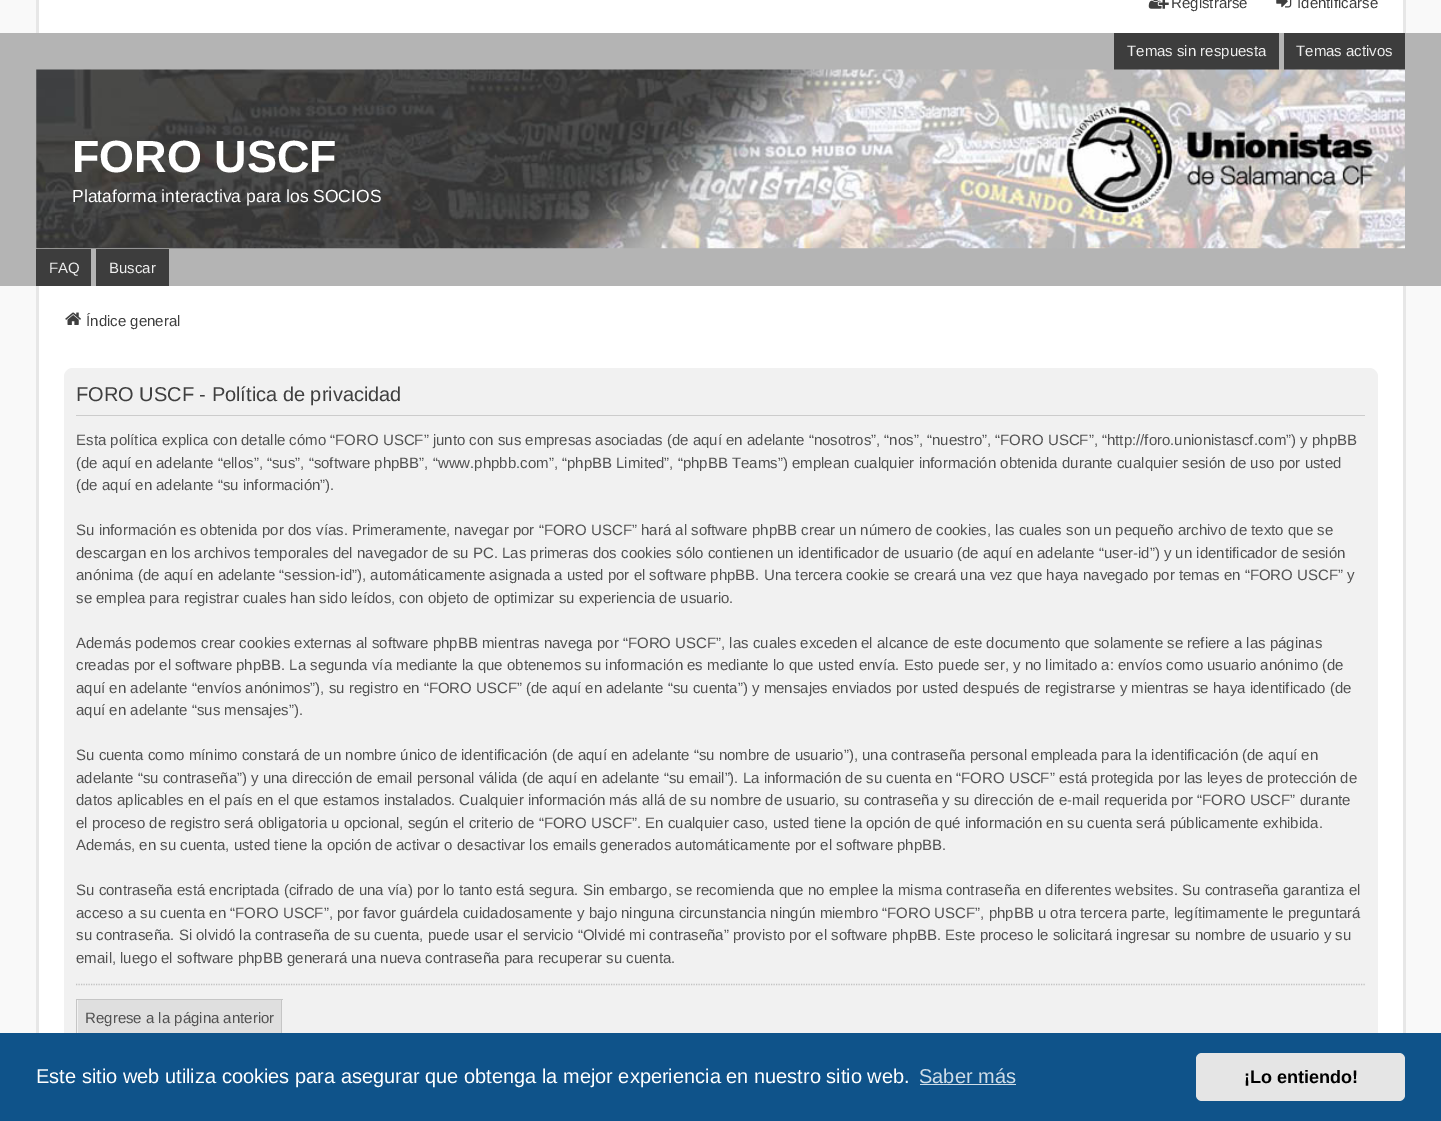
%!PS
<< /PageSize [1441 1121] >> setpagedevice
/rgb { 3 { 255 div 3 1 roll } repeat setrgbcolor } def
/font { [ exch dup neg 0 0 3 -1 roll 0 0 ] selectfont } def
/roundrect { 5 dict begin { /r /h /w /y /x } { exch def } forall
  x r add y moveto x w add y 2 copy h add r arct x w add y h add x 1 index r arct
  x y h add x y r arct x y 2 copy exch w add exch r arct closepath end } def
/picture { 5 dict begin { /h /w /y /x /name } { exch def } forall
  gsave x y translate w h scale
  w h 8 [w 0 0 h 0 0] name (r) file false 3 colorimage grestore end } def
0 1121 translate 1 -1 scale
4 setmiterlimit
249 249 249 rgb
0 0 1441 1121 rectfill
[
  [39 0 1364 33 255 255 255]
  [1403 0 3 33 231 231 231]
  [36 0 3 33 231 231 231]
] { aload pop rgb rectfill } forall
(img/1.rgb) 1148 0 21 9 picture
(img/2.rgb) 1276 0 16 8 picture
[
  [0 33 1441 253 180 180 180]
  [1114 33 165 37 61 61 61]
  [1284 33 121 37 61 61 61]
] { aload pop rgb rectfill } forall
(img/3.rgb) 36 69 1369 180 picture
[
  [36 249 55 37 61 61 61]
  [96 249 73 37 61 61 61]
  [39 286 1364 747 255 255 255]
  [1403 286 3 747 231 231 231]
  [36 286 3 747 231 231 231]
] { aload pop rgb rectfill } forall
(img/4.rgb) 65 312 16 13 picture
241 241 241 rgb
64 368 1314 708 9 roundrect fill
204 204 204 rgb
76 415 1289 1 rectfill
194 194 194 rgb
1.2 setlinewidth
[1.25 1.25] 0 setdash
76 984.5 moveto 1365 984.5 lineto stroke
[
  [78 1000 203 33 223 223 223]
  [76 999 207 1 197 197 197]
  [281 999 1 34 197 197 197]
  [76 999 1 34 197 197 197]
  [0 1033 1441 88 15 83 138]
  [920 1084 96 1 207 221 232]
] { aload pop rgb rectfill } forall
229 229 229 rgb
1196 1053 209 48 6 roundrect fill
/LiberationSans-Regular 15 font
63 63 63 rgb
1171 8 moveto (Registrarse) show
1297 8 moveto (Identificarse) show
238 238 238 rgb
1127 56 moveto (Temas sin respuesta) show
1296 56 moveto (Temas activos) show
/LiberationSans-Bold 45 font
255 255 255 rgb
72 172 moveto (FORO USCF) show
/LiberationSans-Regular 17.5 font
72 202 moveto (Plataforma interactiva para los SOCIOS) show
/LiberationSans-Regular 15 font
238 238 238 rgb
49 273 moveto (FAQ) show
109 273 moveto (Buscar) show
63 63 63 rgb
86 326 moveto (Índice general) show
/LiberationSans-Regular 20 font
76 401 moveto (FORO USCF - Política de privacidad) show
/LiberationSans-Regular 15 font
82 82 82 rgb
[
  [(Esta política explica con detalle cómo “FORO USCF” junto con sus empresas asociadas \(de aquí en adelante “nosotros”, “nos”, “nuestro”, “FORO USCF”, “http://foro.unionistascf.com”\) y phpBB) 76 445]
  [(\(de aquí en adelante “ellos”, “sus”, “software phpBB”, “www.phpbb.com”, “phpBB Limited”, “phpBB Teams”\) emplean cualquier información obtenida durante cualquier sesión de uso por usted) 76 468]
  [(\(de aquí en adelante “su información”\).) 76 490]
  [(Su información es obtenida por dos vías. Primeramente, navegar por “FORO USCF” hará al software phpBB crear un número de cookies, las cuales son un pequeño archivo de texto que se) 76 535]
  [(descargan en los archivos temporales del navegador de su PC. Las primeras dos cookies sólo contienen un identificador de usuario \(de aquí en adelante “user-id”\) y un identificador de sesión) 76 558]
  [(anónima \(de aquí en adelante “session-id”\), automáticamente asignada a usted por el software phpBB. Una tercera cookie se creará una vez que haya navegado por temas en “FORO USCF” y) 76 580]
  [(se emplea para registrar cuales han sido leídos, con objeto de optimizar su experiencia de usuario.) 76 603]
  [(Además podemos crear cookies externas al software phpBB mientras navega por “FORO USCF”, las cuales exceden el alcance de este documento que solamente se refiere a las páginas) 76 648]
  [(creadas por el software phpBB. La segunda vía mediante la que obtenemos su información es mediante lo que usted envía. Esto puede ser, y no limitado a: envíos como usuario anónimo \(de) 76 670]
  [(aquí en adelante “envíos anónimos”\), su registro en “FORO USCF” \(de aquí en adelante “su cuenta”\) y mensajes enviados por usted después de registrarse y mientras se haya identificado \(de) 76 693]
  [(aquí en adelante “sus mensajes”\).) 76 715]
  [(Su cuenta como mínimo constará de un nombre único de identificación \(de aquí en adelante “su nombre de usuario”\), una contraseña personal empleada para la identificación \(de aquí en) 76 760]
  [(adelante “su contraseña”\) y una dirección de email personal válida \(de aquí en adelante “su email”\). La información de su cuenta en “FORO USCF” está protegida por las leyes de protección de) 76 783]
  [(datos aplicables en el país en el que estamos instalados. Cualquier información más allá de su nombre de usuario, su contraseña y su dirección de e-mail requerida por “FORO USCF” durante) 76 805]
  [(el proceso de registro será obligatoria u opcional, según el criterio de “FORO USCF”. En cualquier caso, usted tiene la opción de qué información en su cuenta será públicamente exhibida.) 76 828]
  [(Además, en su cuenta, usted tiene la opción de activar o desactivar los emails generados automáticamente por el software phpBB.) 76 850]
  [(Su contraseña está encriptada \(cifrado de una vía\) por lo tanto está segura. Sin embargo, se recomienda que no emplee la misma contraseña en diferentes websites. Su contraseña garantiza el) 76 895]
  [(acceso a su cuenta en “FORO USCF”, por favor guárdela cuidadosamente y bajo ninguna circunstancia ningún miembro “FORO USCF”, phpBB u otra tercera parte, legítimamente le preguntará) 76 918]
  [(su contraseña. Si olvidó la contraseña de su cuenta, puede usar el servicio “Olvidé mi contraseña” provisto por el software phpBB. Este proceso le solicitará ingresar su nombre de usuario y su) 76 940]
  [(email, luego el software phpBB generará una nueva contraseña para recuperar su cuenta.) 76 963]
  [(Regrese a la página anterior) 85 1023]
] { aload pop moveto show } forall
/LiberationSans-Regular 20 font
255 255 255 rgb
36 1083 moveto (Este sitio web utiliza cookies para asegurar que obtenga la mejor experiencia en nuestro sitio web.) show
207 221 232 rgb
919 1083 moveto (Saber más) show
/LiberationSans-Bold 18 font
0 0 0 rgb
1244 1083 moveto (¡Lo entiendo!) show
showpage
